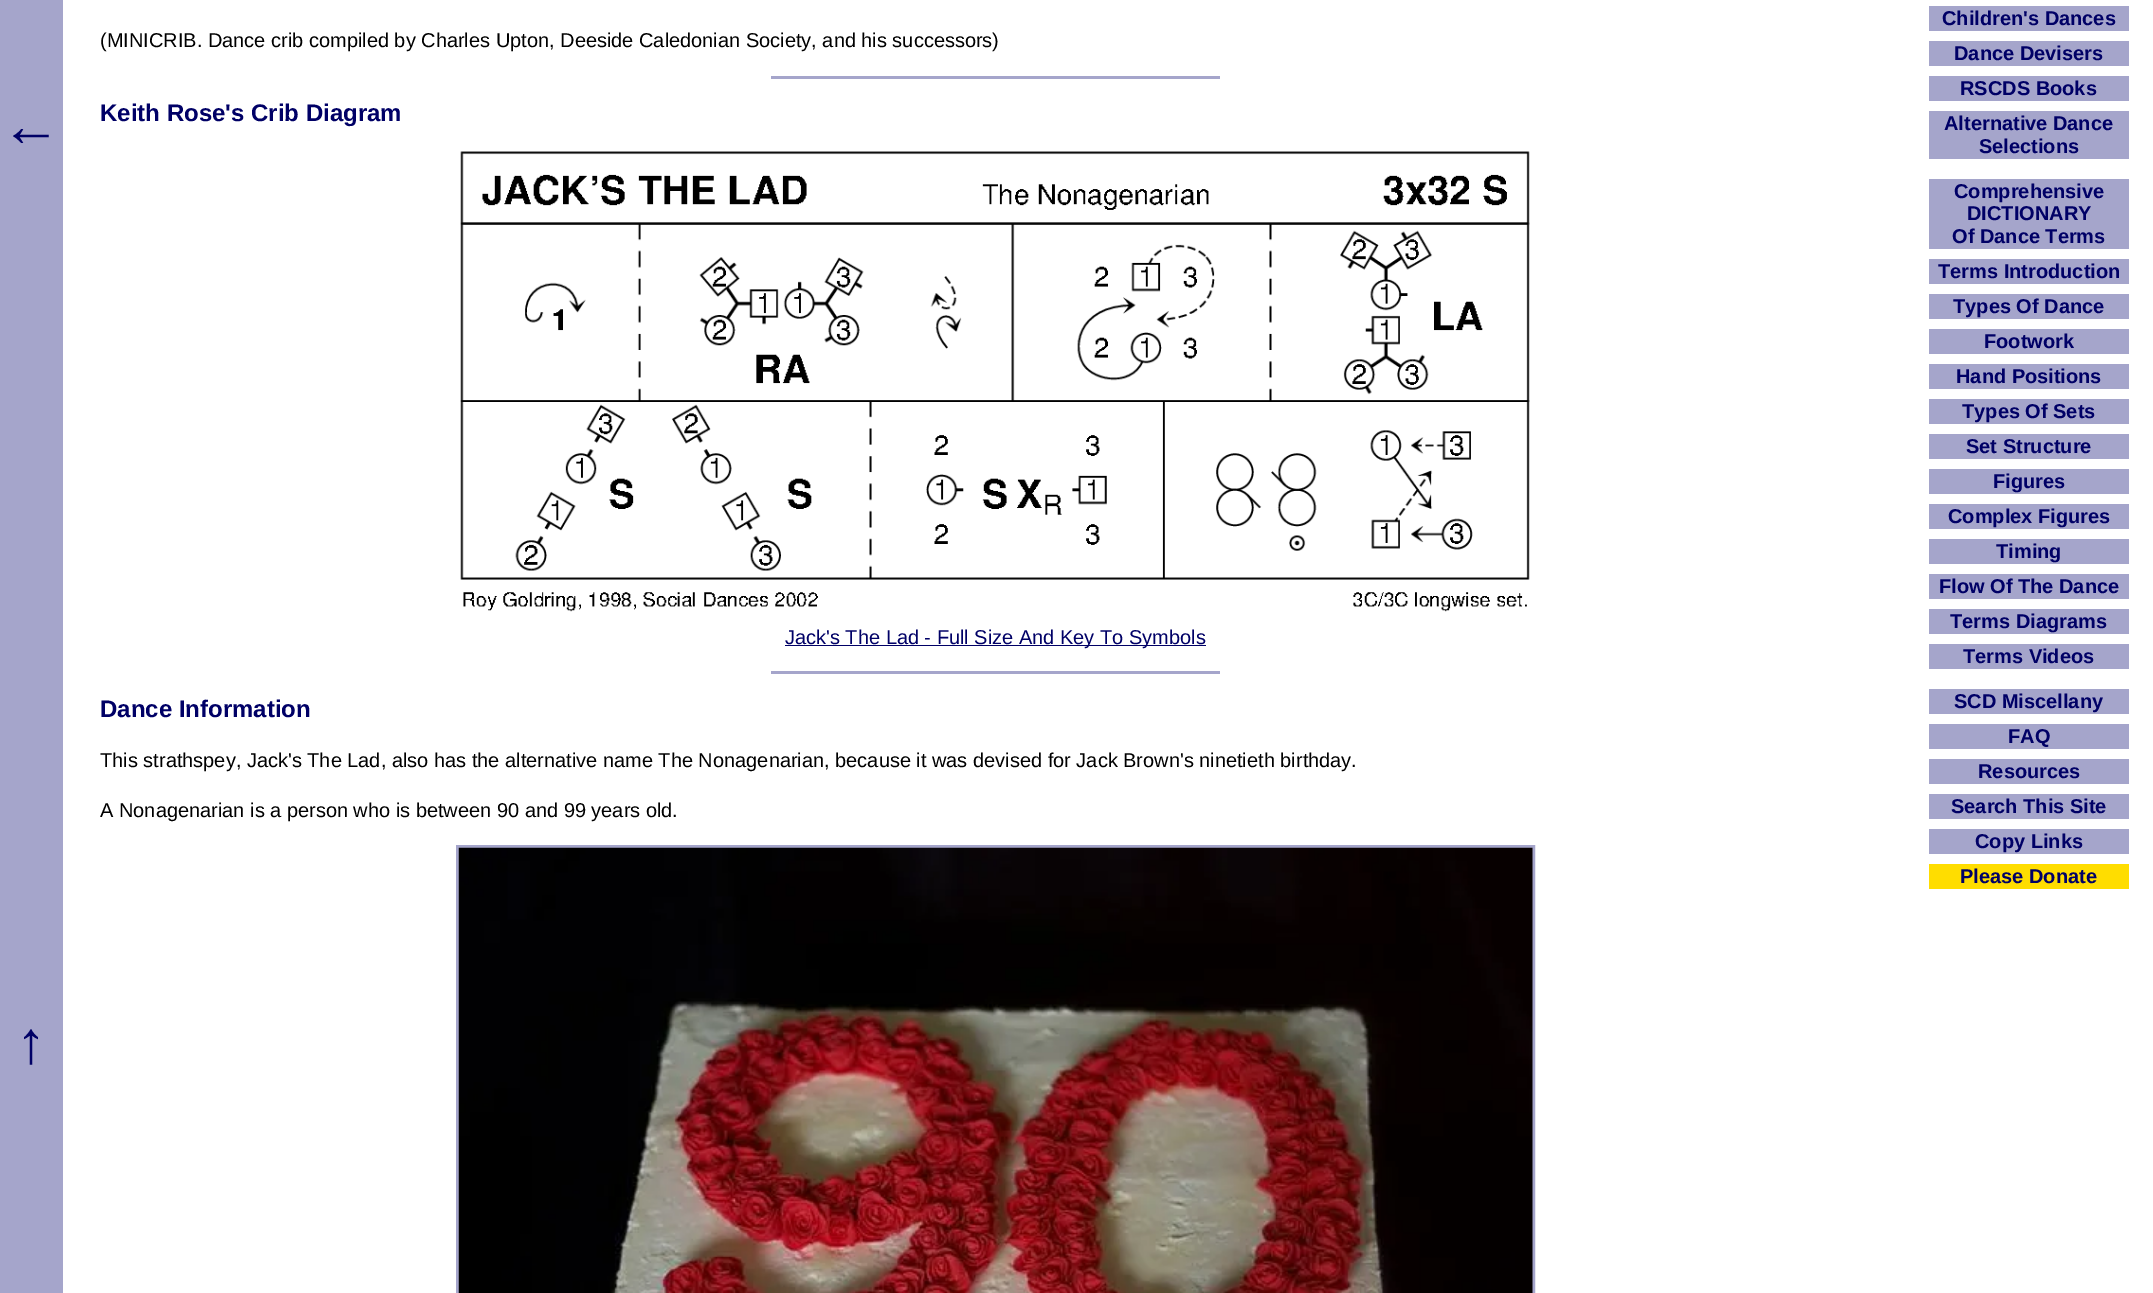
%!PS
<< /PageSize [2153 1293] >> setpagedevice
/rgb { 3 { 255 div 3 1 roll } repeat setrgbcolor } def
/font { [ exch dup neg 0 0 3 -1 roll 0 0 ] selectfont } def
/picture { 5 dict begin { /h /w /y /x /name } { exch def } forall
  gsave x y translate w h scale
  w h 8 [w 0 0 h 0 0] name (r) file false 3 colorimage grestore end } def
0 1293 translate 1 -1 scale
4 setmiterlimit
255 255 255 rgb
0 0 2153 1293 rectfill
165 165 203 rgb
0 0 63 1293 rectfill
771 76 449 3 rectfill
(img/1.rgb) 460 151 1070 461 picture
0 0 102 rgb
785 645 421 1 rectfill
165 165 203 rgb
771 671 449 3 rectfill
3 setlinewidth
457.5 846.5 1076 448 rectstroke
(img/2.rgb) 458 847 1075 446 picture
[
  [1929 6 200 25 165 165 203]
  [1929 41 200 25 165 165 203]
  [1929 76 200 25 165 165 203]
  [1929 111 200 48 165 165 203]
  [1929 179 200 70 165 165 203]
  [1929 259 200 25 165 165 203]
  [1929 294 200 25 165 165 203]
  [1929 329 200 25 165 165 203]
  [1929 364 200 25 165 165 203]
  [1929 399 200 25 165 165 203]
  [1929 434 200 25 165 165 203]
  [1929 469 200 25 165 165 203]
  [1929 504 200 25 165 165 203]
  [1929 539 200 25 165 165 203]
  [1929 574 200 25 165 165 203]
  [1929 609 200 25 165 165 203]
  [1929 644 200 25 165 165 203]
  [1929 689 200 25 165 165 203]
  [1929 724 200 25 165 165 203]
  [1929 759 200 25 165 165 203]
  [1929 794 200 25 165 165 203]
  [1929 829 200 25 165 165 203]
  [1929 864 200 25 255 221 0]
] { aload pop rgb rectfill } forall
/LiberationSans-Regular 20 font
0 0 0 rgb
100 47 moveto (\(MINICRIB. Dance crib compiled by Charles Upton, Deeside Caledonian Society, and his successors\)) show
/LiberationSans-Bold 24 font
0 0 102 rgb
100 121 moveto (Keith Rose's Crib Diagram) show
/LiberationSans-Regular 20 font
785 644 moveto (Jack's The Lad - Full Size And Key To Symbols) show
/LiberationSans-Bold 24 font
100 717 moveto (Dance Information) show
/LiberationSans-Regular 20 font
0 0 0 rgb
100 767 moveto (This strathspey, Jack's The Lad, also has the alternative name The Nonagenarian, because it was devised for Jack Brown's ninetieth birthday.) show
100 817 moveto (A Nonagenarian is a person who is between 90 and 99 years old.) show
/LiberationSans-Bold 20 font
0 0 102 rgb
[
  [(Children's Dances) 1942 25]
  [(Dance Devisers) 1954 60]
  [(RSCDS Books) 1960 95]
  [(Alternative Dance) 1944 130]
  [(Selections) 1979 153]
  [(Comprehensive) 1954 198]
  [(DICTIONARY) 1967 220]
  [(Of Dance Terms) 1952 243]
  [(Terms Introduction) 1938 278]
  [(Types Of Dance) 1953 313]
  [(Footwork) 1984 348]
  [(Hand Positions) 1956 383]
  [(Types Of Sets) 1962 418]
  [(Set Structure) 1966 453]
  [(Figures) 1993 488]
  [(Complex Figures) 1948 523]
  [(Timing) 1996 558]
  [(Flow Of The Dance) 1939 593]
  [(Terms Diagrams) 1950 628]
  [(Terms Videos) 1963 663]
  [(SCD Miscellany) 1954 708]
  [(FAQ) 2008 743]
  [(Resources) 1978 778]
  [(Search This Site) 1951 813]
  [(Copy Links) 1975 848]
  [(Please Donate) 1960 883]
] { aload pop moveto show } forall
/LiberationSans-Regular 60 font
1 146 moveto (←) show
16 1063 moveto (↑) show
showpage
